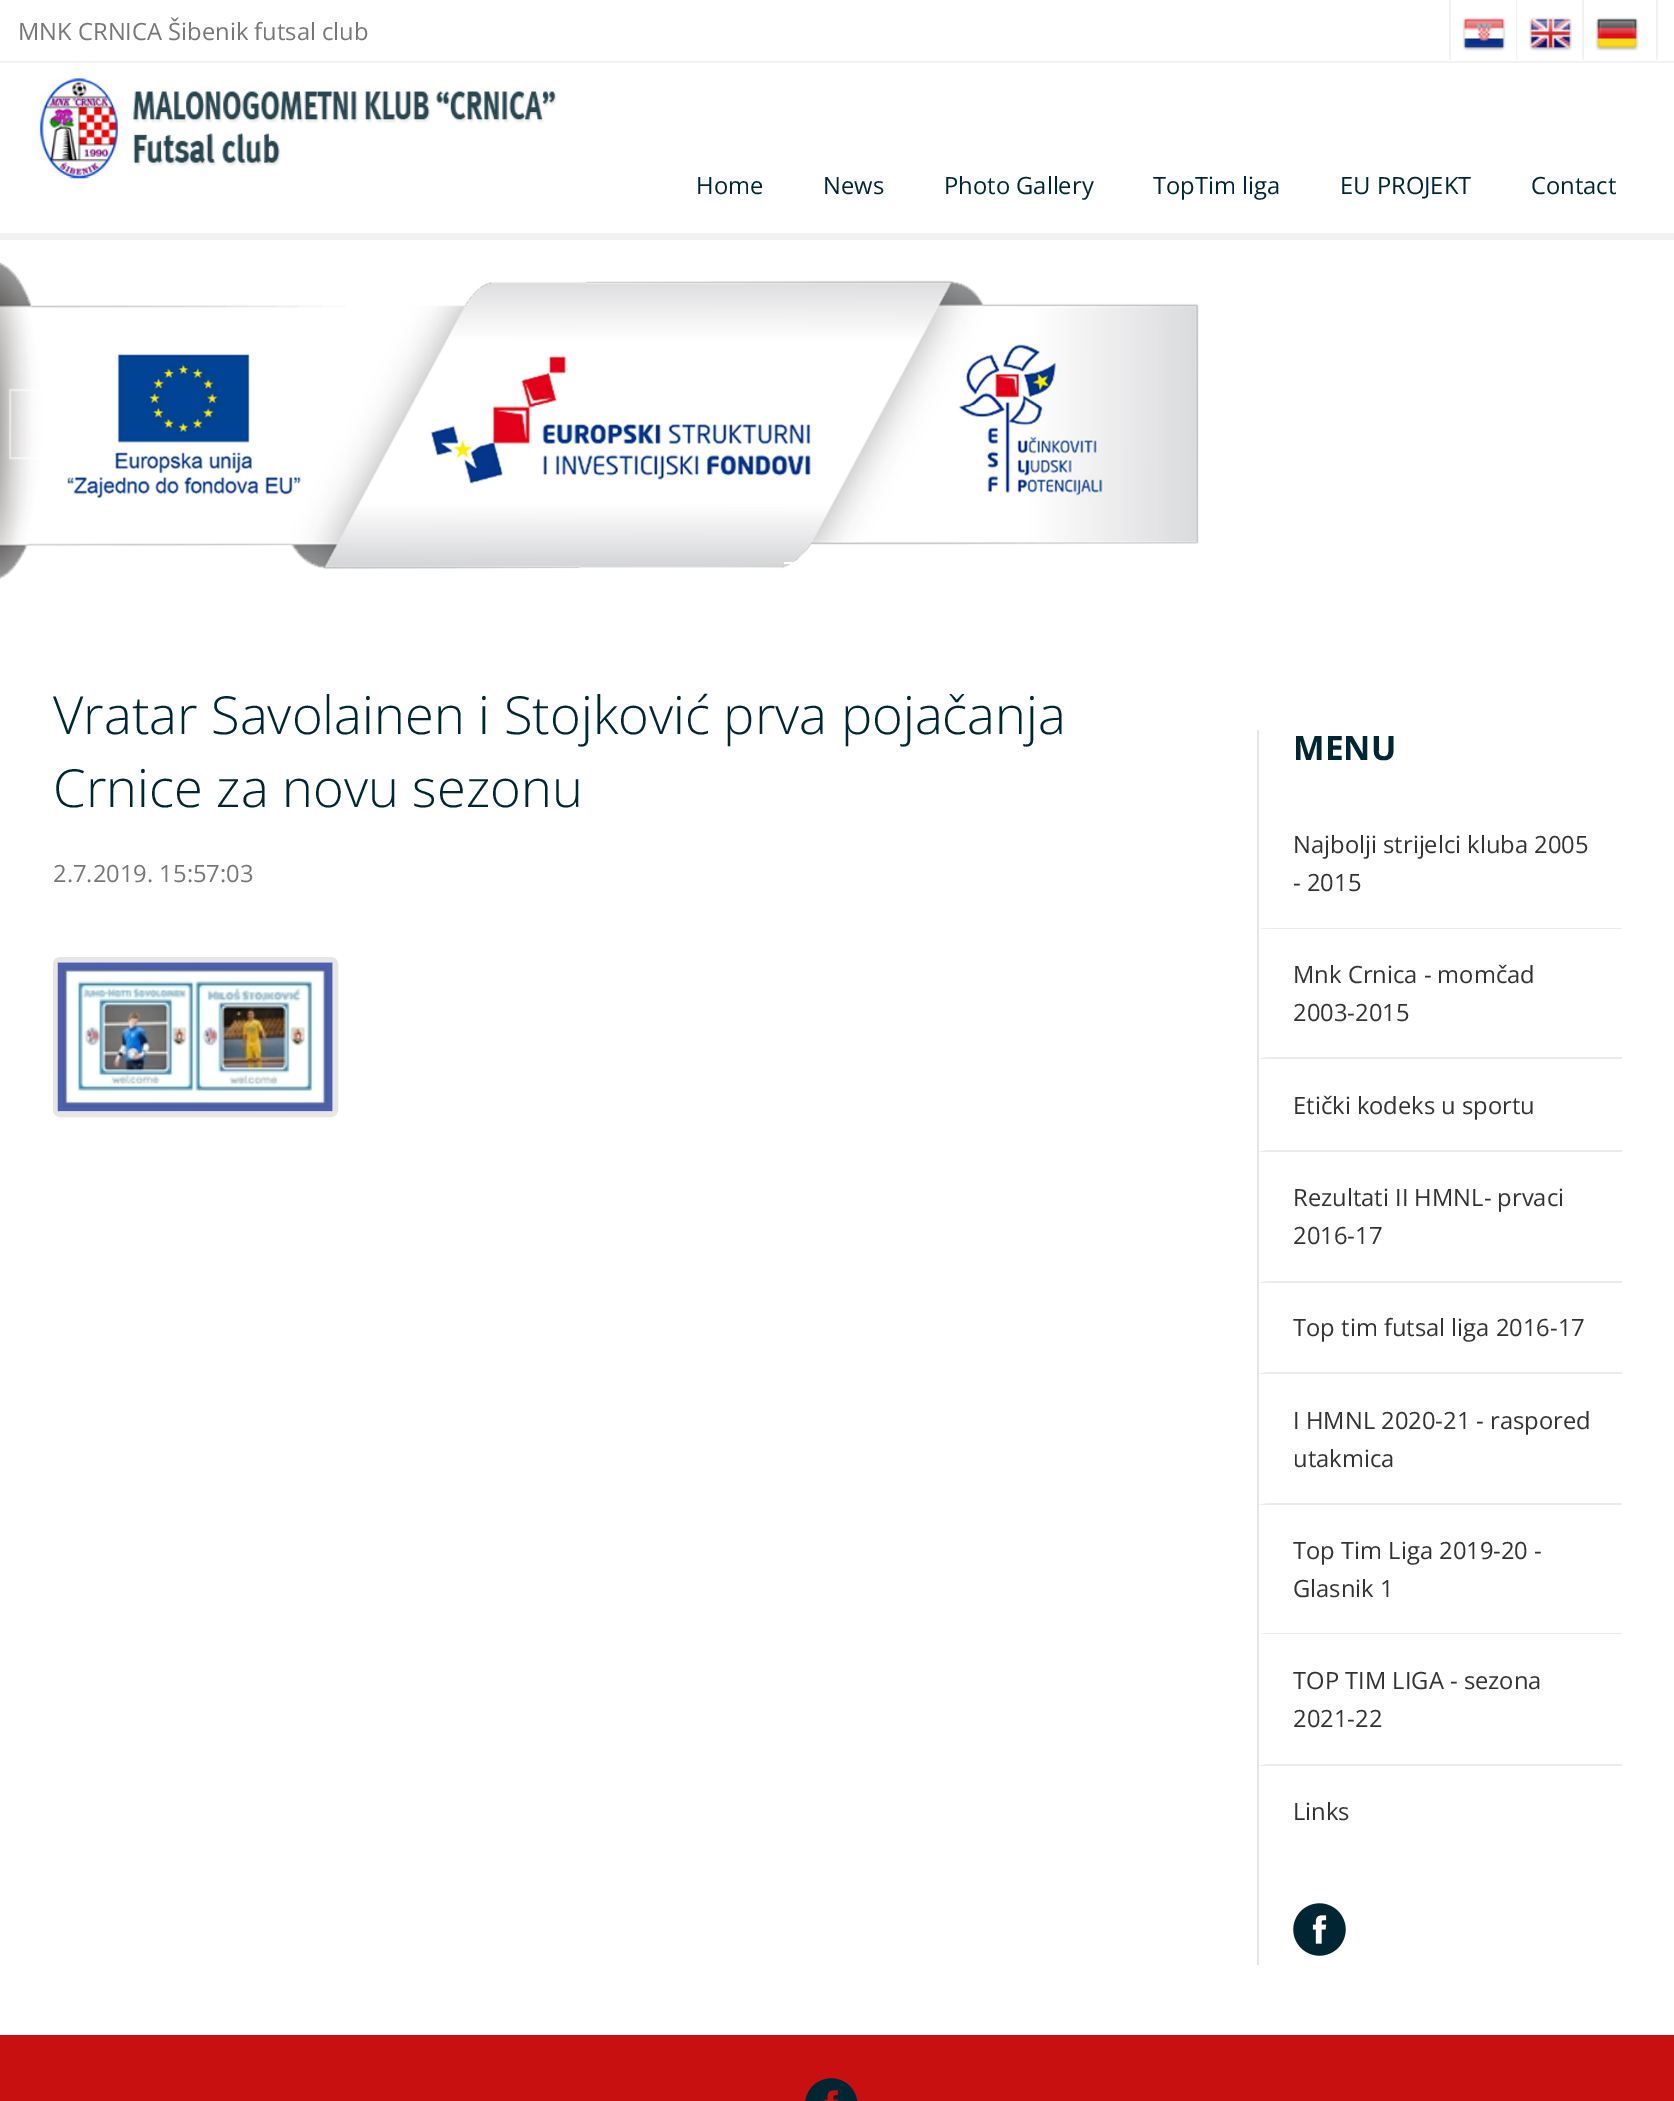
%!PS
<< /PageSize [1674 2101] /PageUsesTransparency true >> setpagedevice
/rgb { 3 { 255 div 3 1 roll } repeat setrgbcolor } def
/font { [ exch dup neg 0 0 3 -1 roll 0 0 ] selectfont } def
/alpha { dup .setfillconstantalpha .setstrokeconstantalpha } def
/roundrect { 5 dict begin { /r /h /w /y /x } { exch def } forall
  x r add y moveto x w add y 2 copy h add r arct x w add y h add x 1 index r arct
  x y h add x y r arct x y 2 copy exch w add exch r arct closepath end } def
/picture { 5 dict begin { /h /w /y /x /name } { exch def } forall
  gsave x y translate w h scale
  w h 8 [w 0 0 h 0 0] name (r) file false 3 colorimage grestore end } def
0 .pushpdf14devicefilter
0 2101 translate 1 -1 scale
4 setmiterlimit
255 255 255 rgb
0 0 1674 2101 rectfill
242 242 242 rgb
1449 0 2 60 rectfill
(img/1.rgb) 1462 17 44 34 picture
1516 0 2 60 rectfill
(img/2.rgb) 1517 0 55 60 picture
1656 0 2 60 rectfill
1582 0 2 60 rectfill
(img/3.rgb) 1595 17 44 34 picture
0 61 1674 2 rectfill
0 233 1674 7 rectfill
(img/4.rgb) 39 78 518 101 picture
(img/5.rgb) 0 262 1199 317 picture
0.5 alpha
255 255 255 rgb
2 setlinewidth
10 390 68 68 rectstroke
1 alpha
784 562 10 2 rectfill
232 229 229 rgb
5 setlinewidth
55.5 959.5 280 155 4.5 roundrect stroke
(img/6.rgb) 57 962 276 150 picture
229 229 229 rgb
1257 730 2 1235 rectfill
235 235 235 rgb
1622 929 moveto 1258 929 lineto 1267 928 lineto 1622 928 lineto closepath fill
1622 1059 moveto 1258 1059 lineto 1267 1057 lineto 1622 1057 lineto closepath fill
1622 1152 moveto 1258 1152 lineto 1267 1150 lineto 1622 1150 lineto closepath fill
1622 1283 moveto 1258 1283 lineto 1267 1281 lineto 1622 1281 lineto closepath fill
1622 1374 moveto 1258 1374 lineto 1267 1372 lineto 1622 1372 lineto closepath fill
1622 1505 moveto 1258 1505 lineto 1267 1503 lineto 1622 1503 lineto closepath fill
1622 1634 moveto 1258 1634 lineto 1267 1633 lineto 1622 1633 lineto closepath fill
1622 1766 moveto 1258 1766 lineto 1267 1764 lineto 1622 1764 lineto closepath fill
(img/7.rgb) 1293 1903 53 53 picture
200 16 16 rgb
0 2035 1674 66 rectfill
(img/8.rgb) 805 2078 53 23 picture
/OpenSans-Regular 23.75 font
119 119 119 rgb
18 40 moveto (MNK CRNICA Šibenik futsal club) show
0 38 51 rgb
[
  [(Home) 696 194]
  [(News) 823 194]
  [(Photo Gallery) 944 194]
  [(TopTim liga) 1153 194]
  [(EU PROJEKT) 1340 194]
  [(Contact) 1531 194]
] { aload pop moveto show } forall
/OpenSans-Light 52.5 font
53 734 moveto (Vratar Savolainen i Stojković prva pojačanja) show
53 807 moveto (Crnice za novu sezonu) show
/OpenSans-Regular 23.75 font
119 119 119 rgb
53 882 moveto (2.7.2019. 15:57:03) show
/OpenSans-Bold 33.5 font
0 38 51 rgb
1293 760 moveto (MENU) show
/OpenSans-Regular 23.75 font
51 51 51 rgb
[
  [(Najbolji strijelci kluba 2005) 1293 853]
  [(- 2015) 1293 891]
  [(Mnk Crnica - momčad) 1293 983]
  [(2003-2015) 1293 1021]
  [(Etički kodeks u sportu) 1293 1114]
  [(Rezultati II HMNL- prvaci) 1293 1206]
  [(2016-17) 1293 1244]
  [(Top tim futsal liga 2016-17) 1293 1336]
  [(I HMNL 2020-21 - raspored) 1293 1429]
  [(utakmica) 1293 1467]
  [(Top Tim Liga 2019-20 -) 1293 1559]
  [(Glasnik 1) 1293 1597]
  [(TOP TIM LIGA - sezona) 1293 1689]
  [(2021-22) 1293 1727]
  [(Links) 1293 1820]
] { aload pop moveto show } forall
.poppdf14devicefilter showpage
